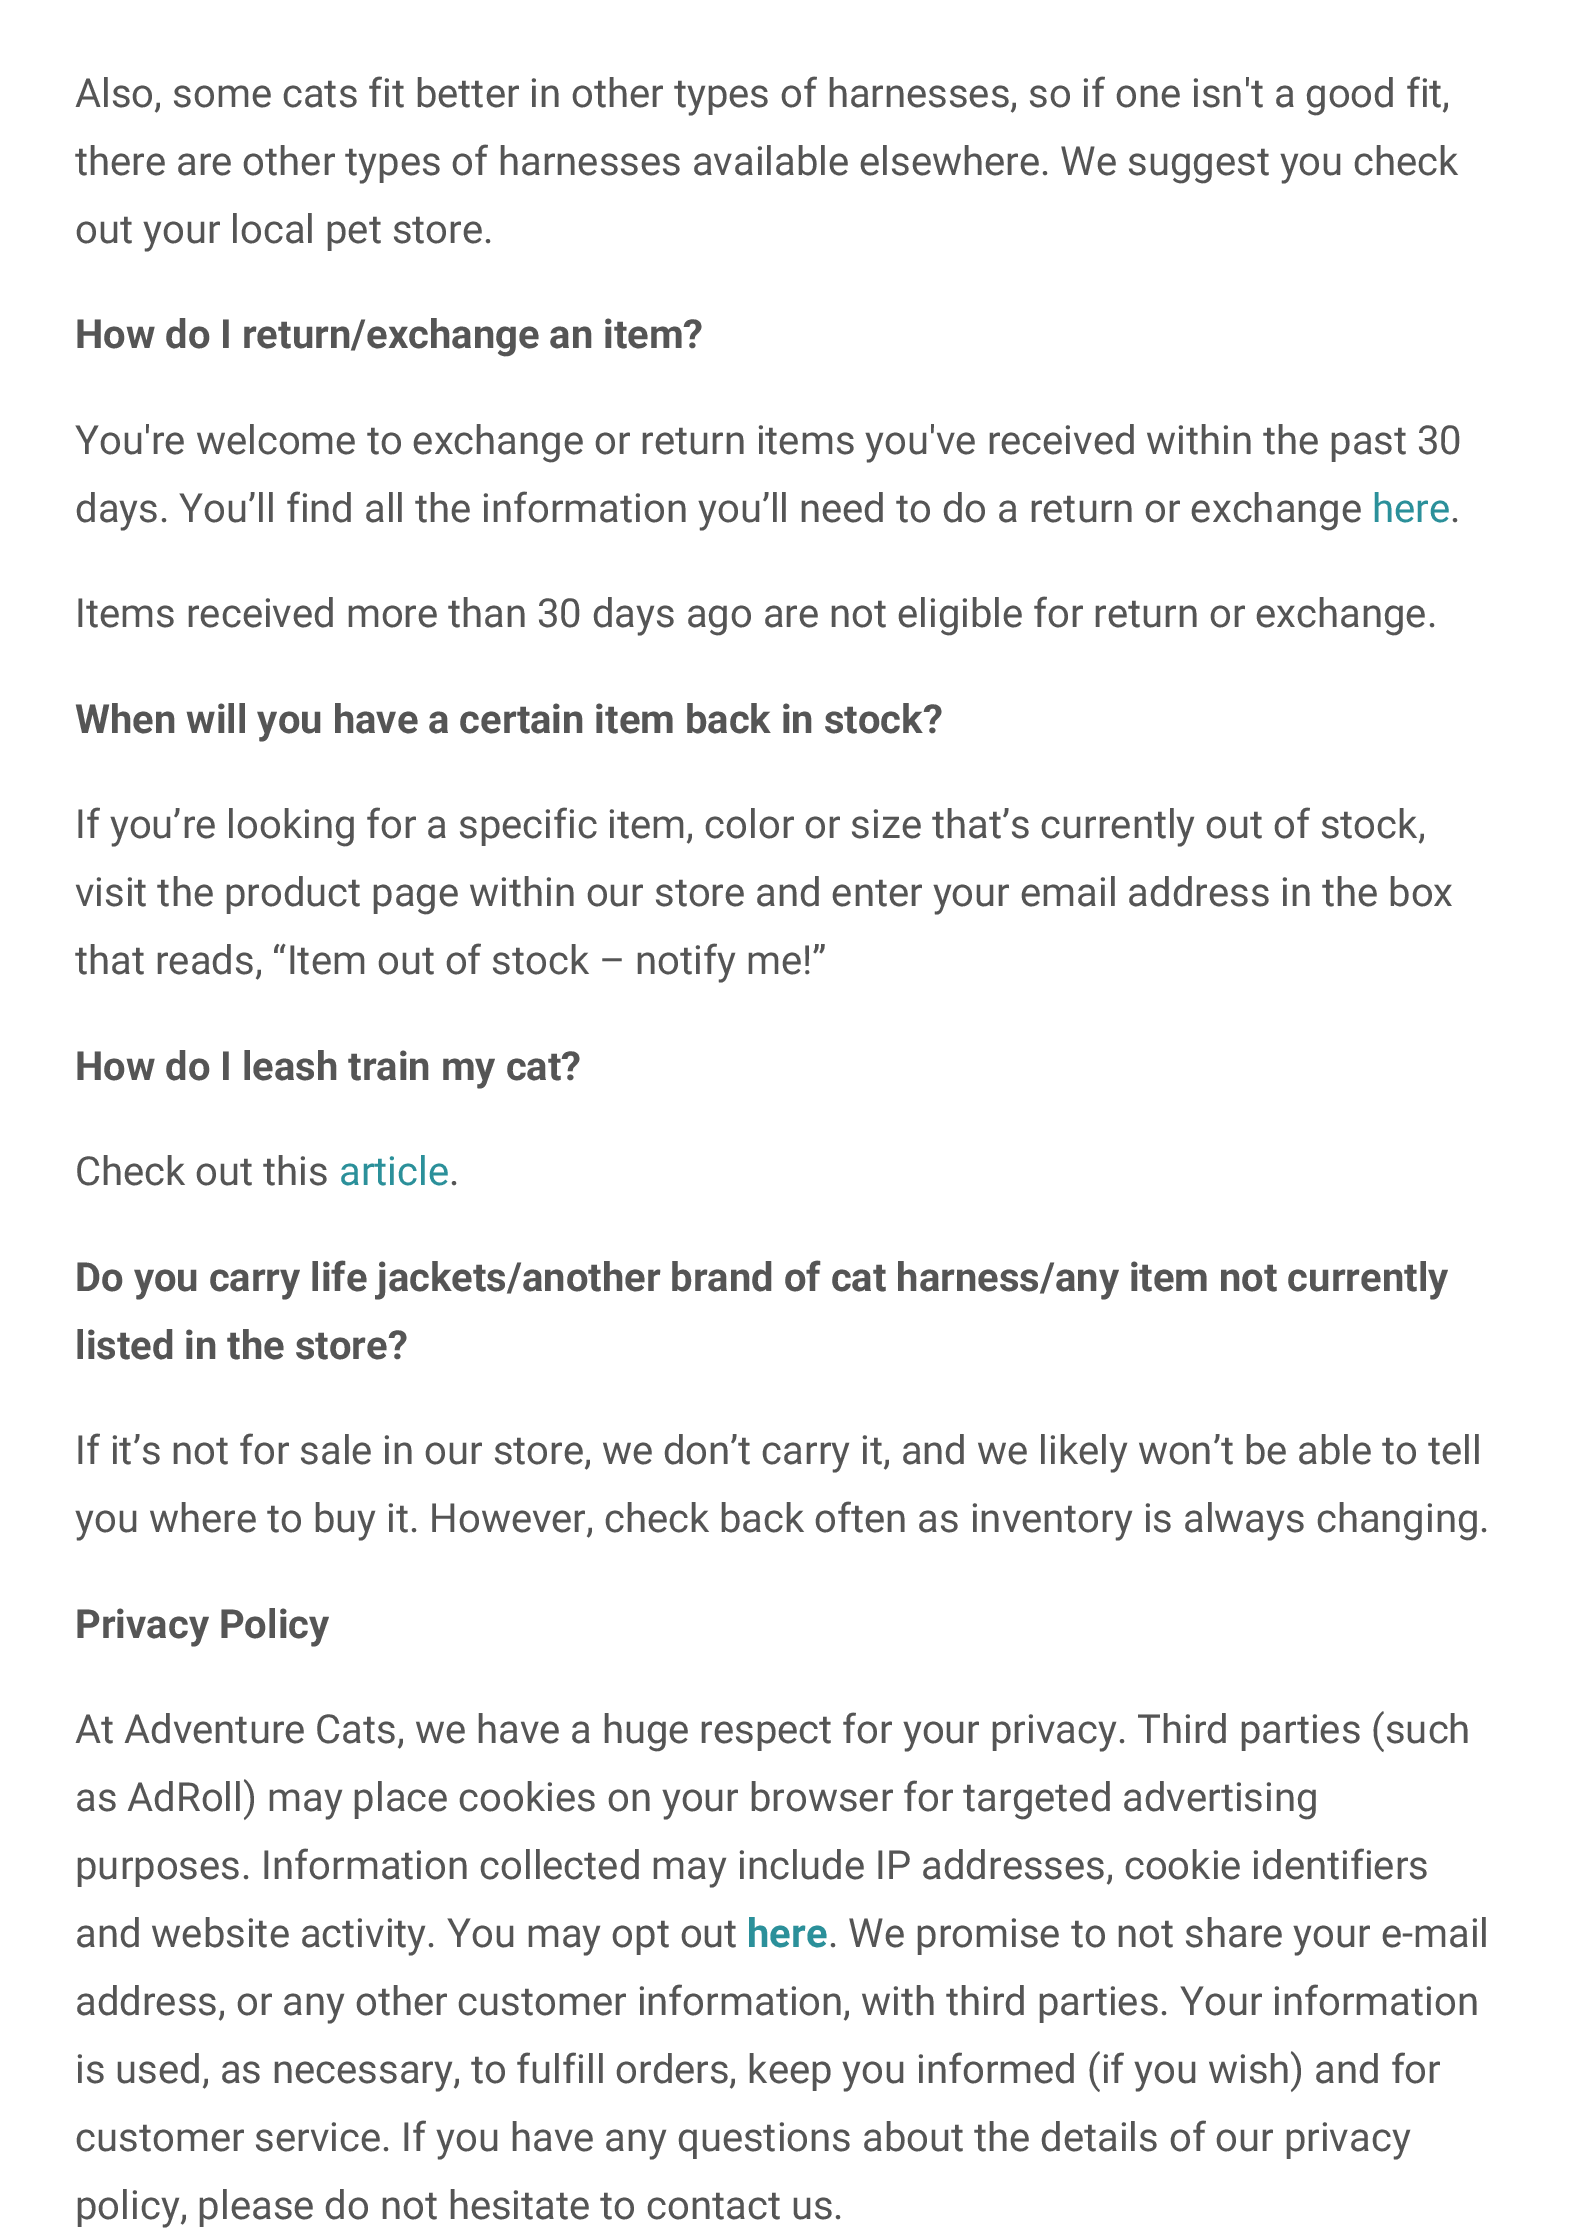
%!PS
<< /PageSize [1573 2235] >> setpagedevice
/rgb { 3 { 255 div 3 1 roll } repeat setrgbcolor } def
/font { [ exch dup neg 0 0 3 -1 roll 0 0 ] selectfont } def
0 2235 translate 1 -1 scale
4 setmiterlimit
255 255 255 rgb
0 0 1573 2235 rectfill
/Roboto-Regular 40 font
85 85 85 rgb
[
  [(Also, some cats fit better in other types of harnesses, so if one isn't a good fit,) 75 107]
  [(there are other types of harnesses available elsewhere. We suggest you check) 75 175]
  [(out your local pet store.) 75 243]
] { aload pop moveto show } forall
/Roboto-Bold 40 font
75 348 moveto (How do I return/exchange an item?) show
/Roboto-Regular 40 font
75 454 moveto (You're welcome to exchange or return items you've received within the past 30) show
75 522 moveto (days. You’ll find all the information you’ll need to do a return or exchange) show
43 144 154 rgb
1372 522 moveto (here) show
85 85 85 rgb
1450 522 moveto (.) show
75 627 moveto (Items received more than 30 days ago are not eligible for return or exchange.) show
/Roboto-Bold 40 font
75 733 moveto (When will you have a certain item back in stock?) show
/Roboto-Regular 40 font
[
  [(If you’re looking for a specific item, color or size that’s currently out of stock,) 75 838]
  [(visit the product page within our store and enter your email address in the box) 75 906]
  [(that reads, “Item out of stock – notify me!”) 75 974]
] { aload pop moveto show } forall
/Roboto-Bold 40 font
75 1080 moveto (How do I leash train my cat?) show
/Roboto-Regular 40 font
75 1185 moveto (Check out this) show
43 144 154 rgb
339 1185 moveto (article) show
85 85 85 rgb
449 1185 moveto (.) show
/Roboto-Bold 40 font
75 1291 moveto (Do you carry life jackets/another brand of cat harness/any item not currently) show
75 1359 moveto (listed in the store?) show
/Roboto-Regular 40 font
75 1464 moveto (If it’s not for sale in our store, we don’t carry it, and we likely won’t be able to tell) show
75 1532 moveto (you where to buy it. However, check back often as inventory is always changing.) show
/Roboto-Bold 40 font
75 1638 moveto (Privacy Policy) show
/Roboto-Regular 40 font
[
  [(At Adventure Cats, we have a huge respect for your privacy. Third parties \(such) 75 1743]
  [(as AdRoll\) may place cookies on your browser for targeted advertising) 75 1811]
  [(purposes. Information collected may include IP addresses, cookie identifiers) 75 1879]
  [(and website activity. You may opt out) 75 1947]
] { aload pop moveto show } forall
/Roboto-Bold 40 font
43 144 154 rgb
747 1947 moveto (here) show
/Roboto-Regular 40 font
85 85 85 rgb
[
  [(. We promise to not share your e-mail) 828 1947]
  [(address, or any other customer information, with third parties. Your information) 75 2015]
  [(is used, as necessary, to fulfill orders, keep you informed \(if you wish\) and for) 75 2083]
  [(customer service. If you have any questions about the details of our privacy) 75 2151]
  [(policy, please do not hesitate to contact us.) 75 2219]
] { aload pop moveto show } forall
showpage
